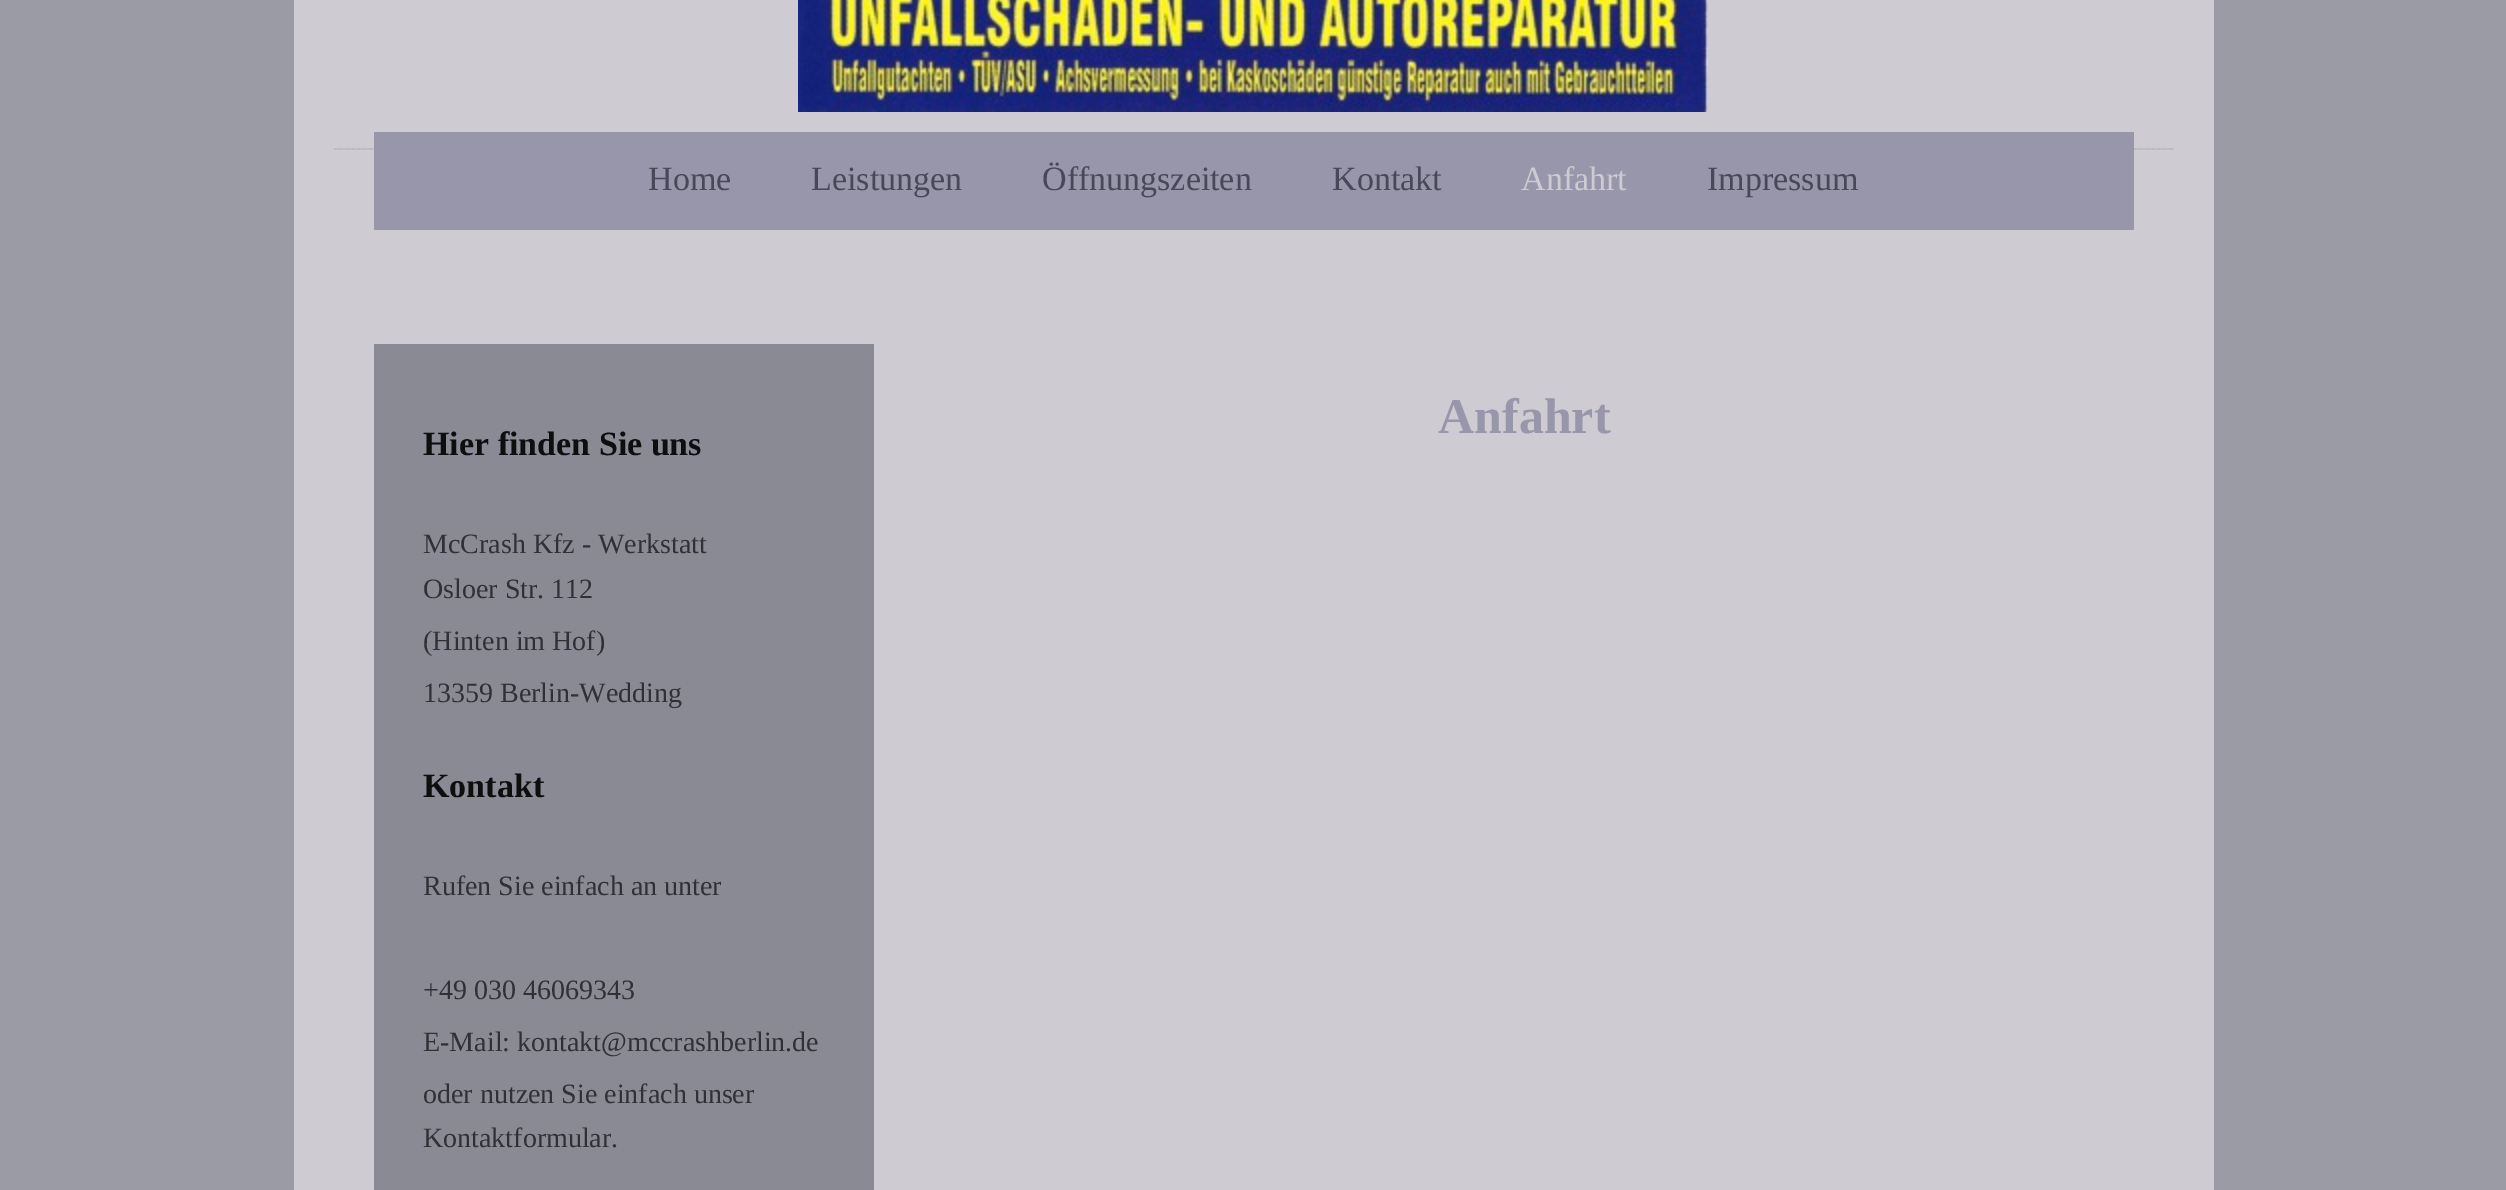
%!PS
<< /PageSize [2506 1190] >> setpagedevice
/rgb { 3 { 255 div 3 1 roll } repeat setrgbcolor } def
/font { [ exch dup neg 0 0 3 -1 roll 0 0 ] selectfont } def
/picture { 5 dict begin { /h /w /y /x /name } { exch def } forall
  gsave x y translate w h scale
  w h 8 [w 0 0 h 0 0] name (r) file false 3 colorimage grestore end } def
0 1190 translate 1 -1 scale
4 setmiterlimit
155 155 165 rgb
0 0 2506 1190 rectfill
206 204 210 rgb
294 0 1920 1190 rectfill
(img/1.rgb) 798 0 910 112 picture
204 204 204 rgb
334 148 1840 2 rectfill
(img/2.rgb) 334 148 1840 2 picture
152 150 170 rgb
374 132 1760 98 rectfill
137 138 148 rgb
374 344 500 846 rectfill
/LiberationSerif-Regular 34 font
74 72 87 rgb
[
  [(Home) 648 190]
  [(Leistungen) 811 190]
  [(Öffnungszeiten) 1042 190]
  [(Kontakt) 1332 190]
] { aload pop moveto show } forall
206 204 210 rgb
1521 190 moveto (Anfahrt) show
74 72 87 rgb
1707 190 moveto (Impressum) show
/LiberationSerif-Bold 50 font
152 150 170 rgb
1438 433 moveto (Anfahrt) show
/LiberationSerif-Bold 34 font
14 14 15 rgb
423 455 moveto (Hier finden Sie uns) show
/LiberationSerif-Regular 28 font
48 49 53 rgb
[
  [(McCrash Kfz - Werkstatt) 423 553]
  [(Osloer Str. 112) 423 598]
  [(\(Hinten im Hof\)) 423 650]
  [(13359 Berlin-Wedding) 423 702]
] { aload pop moveto show } forall
/LiberationSerif-Bold 34 font
14 14 15 rgb
423 797 moveto (Kontakt) show
/LiberationSerif-Regular 28 font
48 49 53 rgb
[
  [(Rufen Sie einfach an unter) 423 895]
  [(+49 030 46069343) 423 999]
  [(E-Mail: kontakt@mccrashberlin.de) 423 1051]
  [(oder nutzen Sie einfach unser) 423 1103]
  [(Kontaktformular.) 423 1147]
] { aload pop moveto show } forall
showpage
